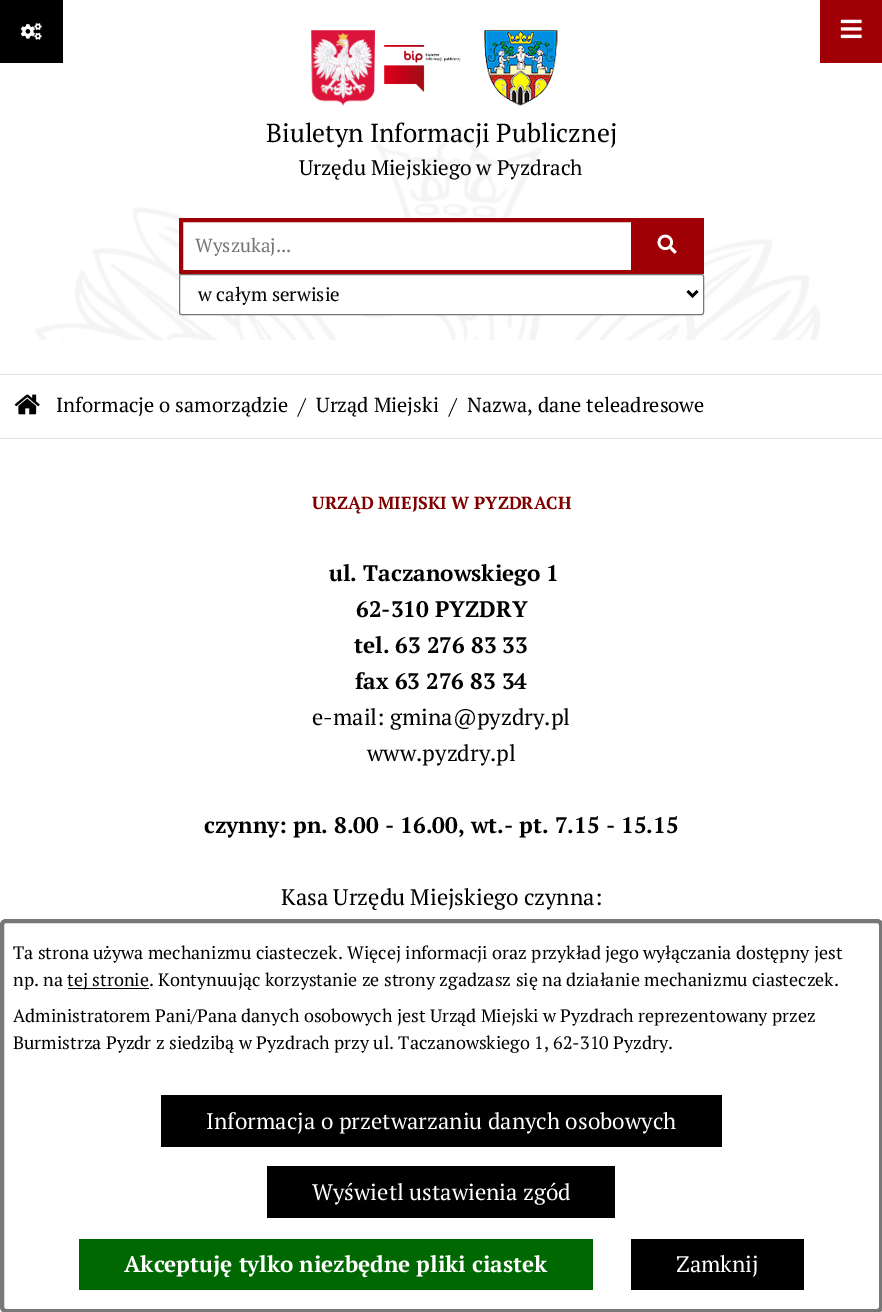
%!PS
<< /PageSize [882 1312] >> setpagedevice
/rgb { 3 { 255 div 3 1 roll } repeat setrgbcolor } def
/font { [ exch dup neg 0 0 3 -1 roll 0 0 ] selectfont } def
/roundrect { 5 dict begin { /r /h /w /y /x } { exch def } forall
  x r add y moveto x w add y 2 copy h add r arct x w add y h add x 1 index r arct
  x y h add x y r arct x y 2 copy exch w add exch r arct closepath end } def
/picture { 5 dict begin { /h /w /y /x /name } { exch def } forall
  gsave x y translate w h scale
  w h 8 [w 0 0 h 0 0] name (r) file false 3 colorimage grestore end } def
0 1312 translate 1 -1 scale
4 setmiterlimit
255 255 255 rgb
0 0 882 1312 rectfill
225 225 225 rgb
0 374 882 1 rectfill
0 0 0 rgb
0 0 63 63 rectfill
(img/1.rgb) 20 23 22 17 picture
158 0 5 rgb
820 0 62 63 rectfill
(img/2.rgb) 840 19 22 20 picture
(img/3.rgb) 35 127 786 213 picture
(img/4.rgb) 311 30 64 76 picture
(img/5.rgb) 384 45 77 47 picture
(img/6.rgb) 484 30 74 76 picture
255 255 255 rgb
183 222 359 48 rectfill
158 0 5 rgb
4 setlinewidth
181 220 452 52 rectstroke
635 218 69 56 rectfill
(img/7.rgb) 657 234 20 20 picture
255 255 255 rgb
179.5 274.5 524 40 2 roundrect gsave fill grestore
118 118 118 rgb
1 setlinewidth
stroke
0 0 0 rgb
2.5 setlinewidth
687.5 291 moveto 692.5 296 lineto 697.5 291 lineto stroke
225 225 225 rgb
0 438 882 1 rectfill
(img/8.rgb) 14 394 26 21 picture
120 120 120 rgb
4 setlinewidth
2 921 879 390 4 roundrect stroke
[
  [68 988 81 1 0 0 0]
  [161 1095 561 52 0 0 0]
  [267 1166 348 52 0 0 0]
  [79 1239 514 51 0 104 0]
  [631 1239 173 51 0 0 0]
] { aload pop rgb rectfill } forall
/PTSerif-Regular 25.9 font
266 142 moveto (Biuletyn Informacji Publicznej) show
/PTSerif-Regular 21 font
299 175 moveto (Urzędu Miejskiego w Pyzdrach) show
/PTSerif-Regular 19 font
117 117 117 rgb
195 252 moveto (Wyszukaj...) show
0 0 0 rgb
198 301 moveto (w całym serwisie) show
/PTSerif-Regular 20.25 font
56 412 moveto (Informacje o samorządzie) show
/PTSerif-Regular 22.5 font
298 414 moveto (/) show
/PTSerif-Regular 20.25 font
316 412 moveto (Urząd Miejski) show
/PTSerif-Regular 22.5 font
449 414 moveto (/) show
/PTSerif-Regular 20.25 font
467 412 moveto (Nazwa, dane teleadresowe) show
/PTSerif-Bold 17.5 font
128 0 0 rgb
312 509 moveto (URZĄD MIEJSKI W PYZDRACH) show
/PTSerif-Bold 22.5 font
0 0 0 rgb
[
  [(ul. Taczanowskiego 1) 329 581]
  [(62-310 PYZDRY) 356 617]
  [(tel. 63 276 83 33) 354 653]
  [(fax 63 276 83 34) 355 689]
] { aload pop moveto show } forall
/PTSerif-Regular 22.5 font
312 725 moveto (e-mail: gmina@pyzdry.pl) show
367 761 moveto (www.pyzdry.pl) show
/PTSerif-Bold 22.5 font
204 833 moveto (czynny: pn. 8.00 - 16.00, wt.- pt. 7.15 - 15.15) show
/PTSerif-Regular 22.5 font
281 905 moveto (Kasa Urzędu Miejskiego czynna:) show
/PTSerif-Regular 18 font
[
  [(Ta strona używa mechanizmu ciasteczek. Więcej informacji oraz przykład jego wyłączania dostępny jest) 13 959]
  [(np. na) 13 986]
  [(tej stronie. Kontynuując korzystanie ze strony zgadzasz się na działanie mechanizmu ciasteczek.) 67 986]
  [(Administratorem Pani/Pana danych osobowych jest Urząd Miejski w Pyzdrach reprezentowany przez) 13 1022]
  [(Burmistrza Pyzdr z siedzibą w Pyzdrach przy ul. Taczanowskiego 1, 62-310 Pyzdry.) 13 1049]
] { aload pop moveto show } forall
/PTSerif-Regular 22.5 font
255 255 255 rgb
206 1129 moveto (Informacja o przetwarzaniu danych osobowych) show
312 1200 moveto (Wyświetl ustawienia zgód) show
/PTSerif-Bold 22.5 font
124 1272 moveto (Akceptuję tylko niezbędne pliki ciastek) show
/PTSerif-Regular 22.5 font
676 1272 moveto (Zamknij) show
showpage
